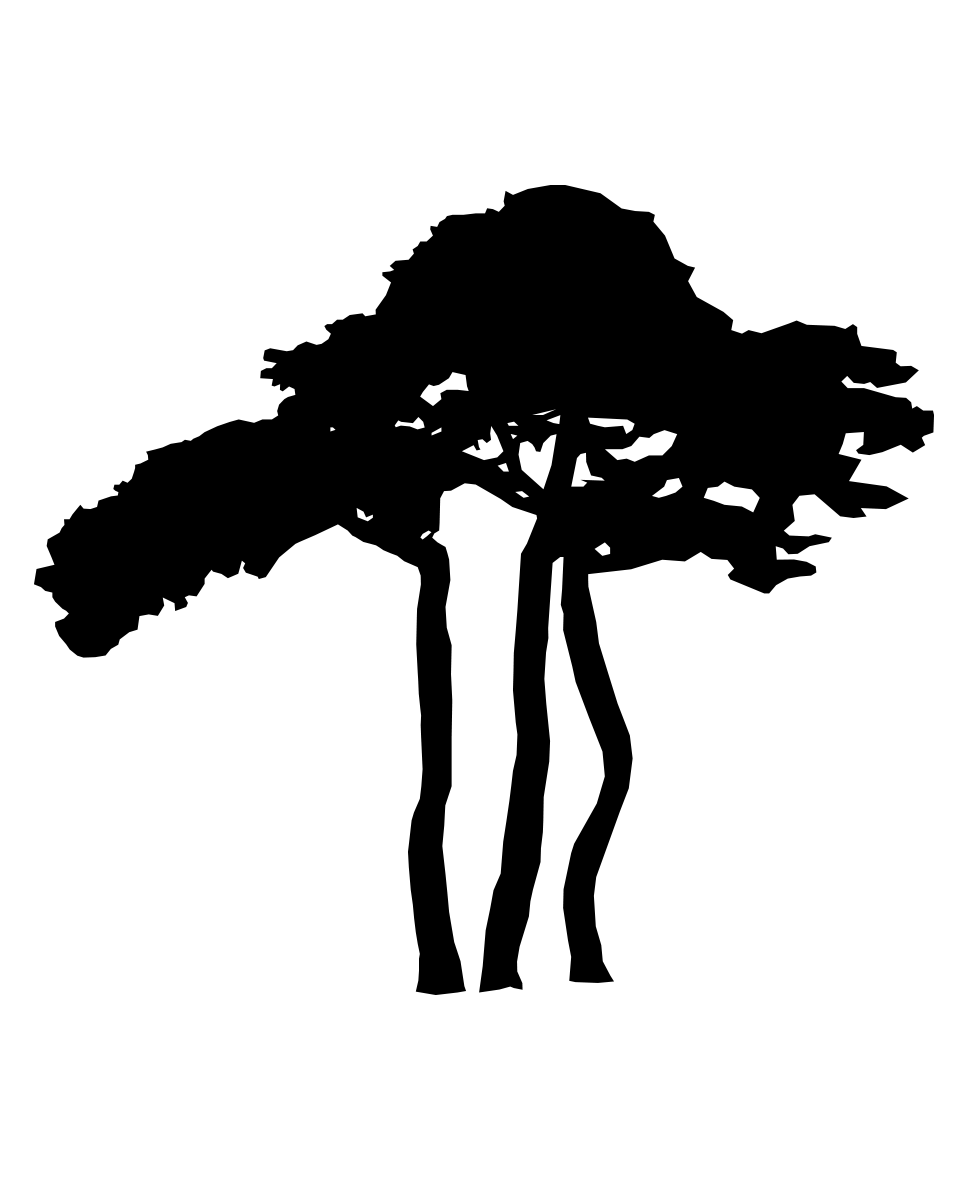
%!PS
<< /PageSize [968 1180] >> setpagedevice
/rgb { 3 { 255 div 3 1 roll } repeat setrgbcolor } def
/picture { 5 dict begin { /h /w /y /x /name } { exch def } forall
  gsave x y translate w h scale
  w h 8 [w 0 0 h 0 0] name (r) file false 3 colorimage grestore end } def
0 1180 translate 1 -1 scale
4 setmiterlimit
255 255 255 rgb
0 0 968 1180 rectfill
(img/1.rgb) 34 185 900 810 picture
showpage
